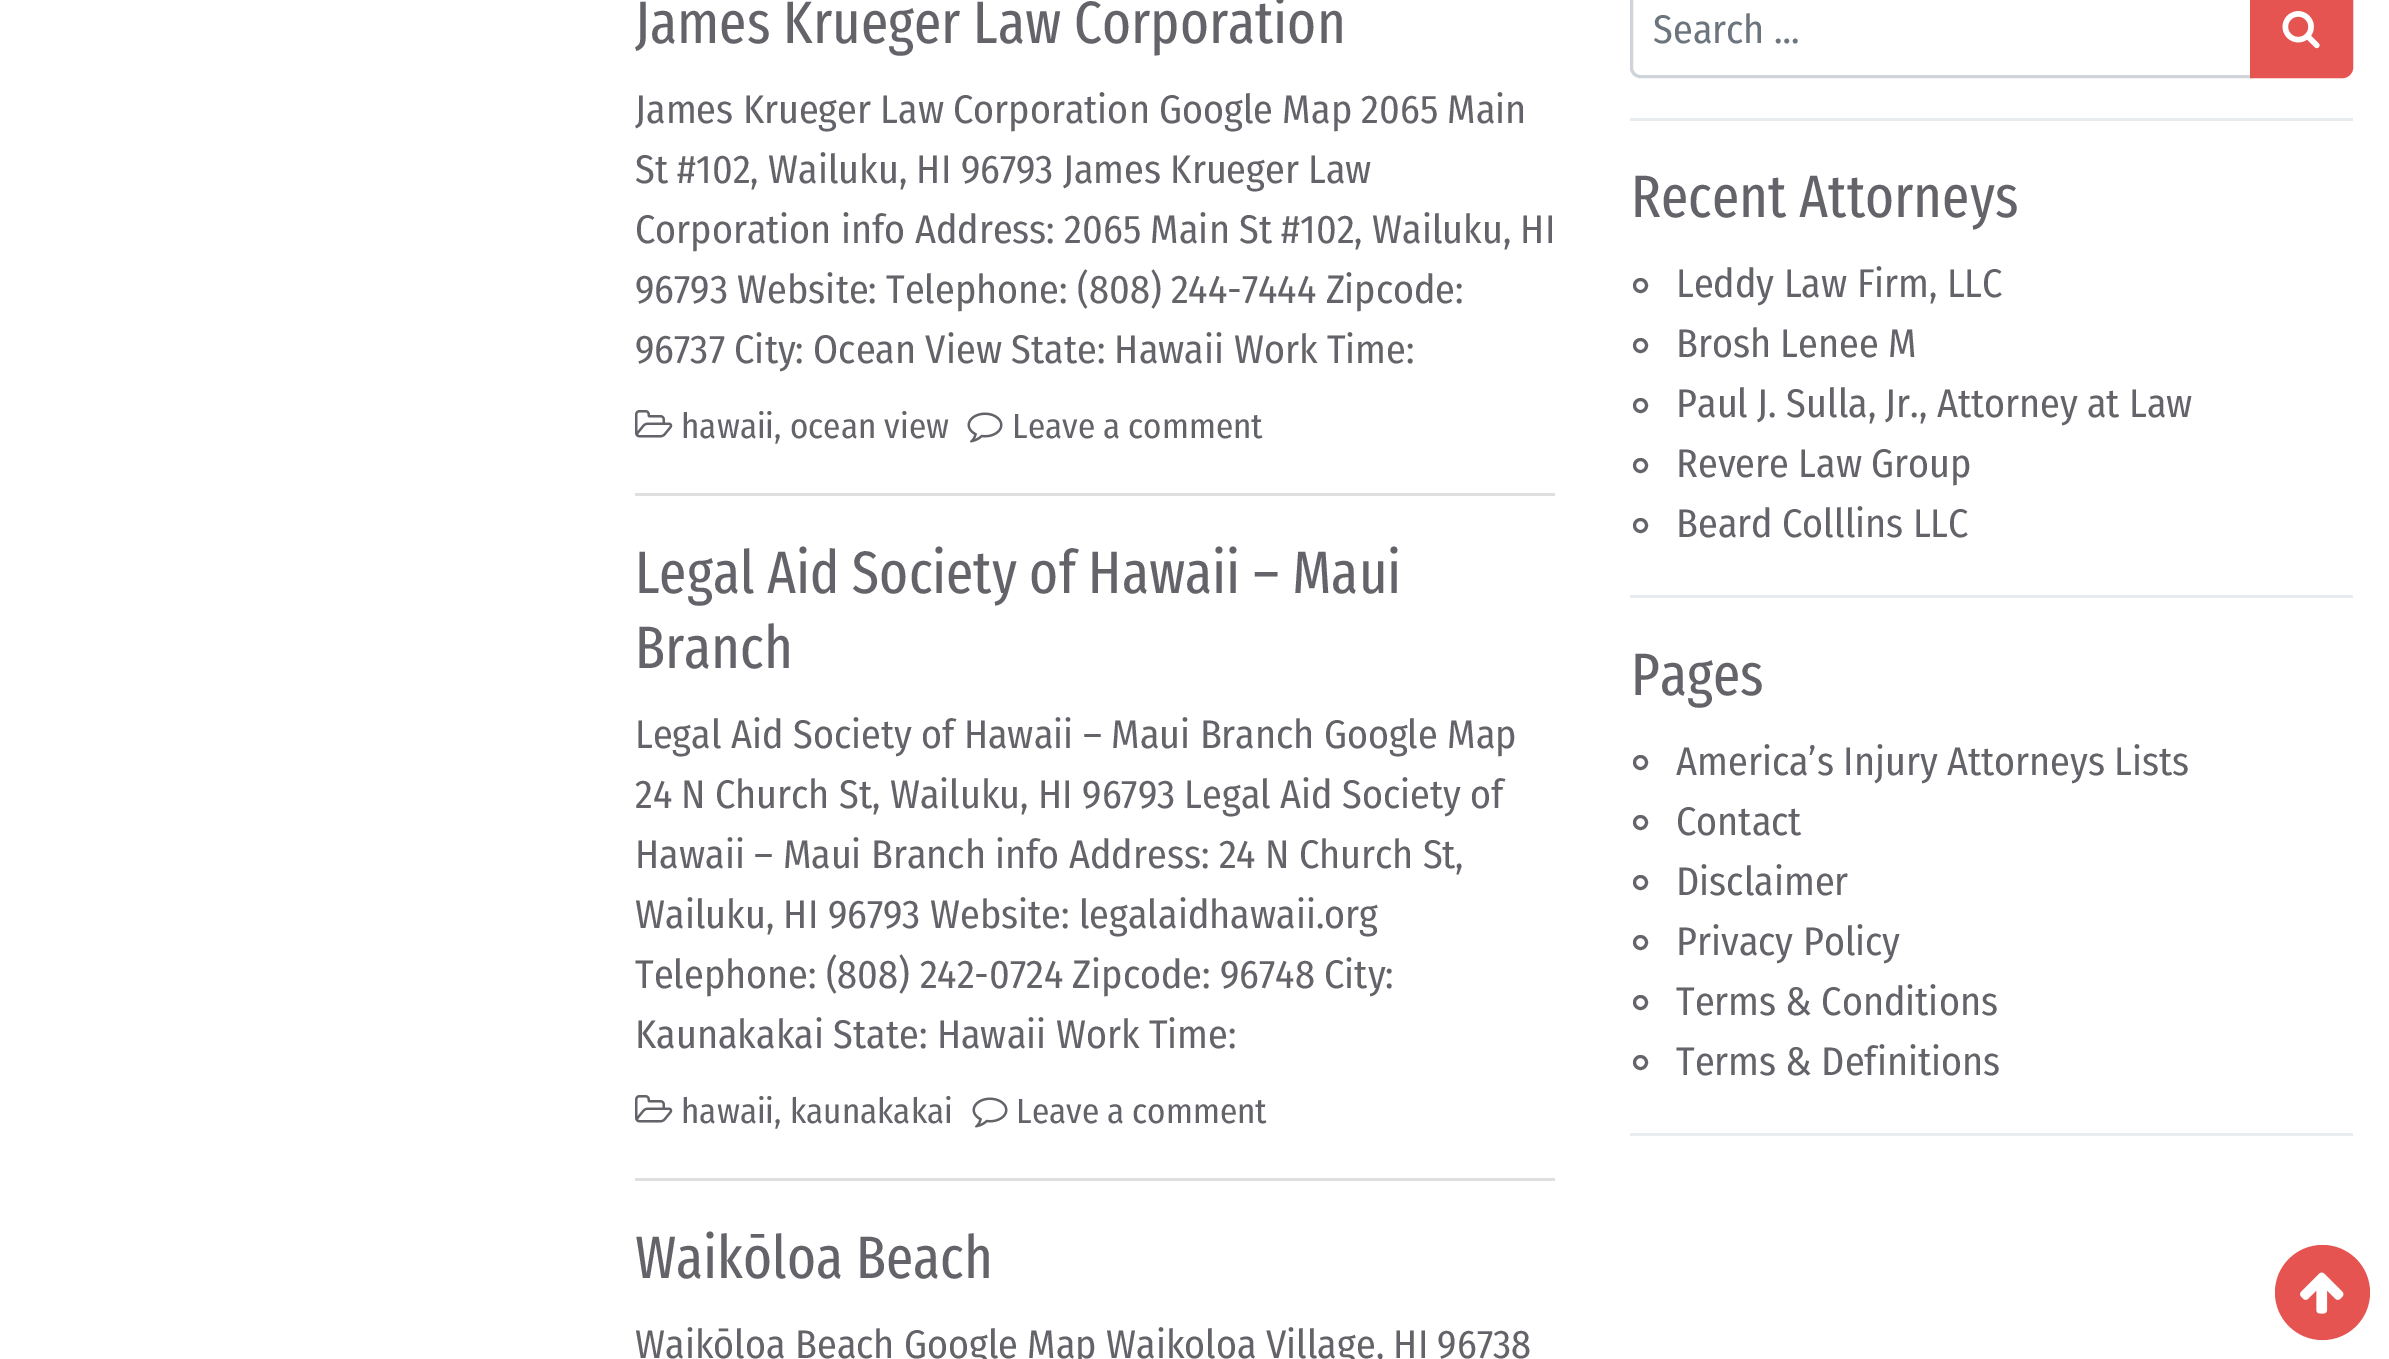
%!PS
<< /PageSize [2389 1359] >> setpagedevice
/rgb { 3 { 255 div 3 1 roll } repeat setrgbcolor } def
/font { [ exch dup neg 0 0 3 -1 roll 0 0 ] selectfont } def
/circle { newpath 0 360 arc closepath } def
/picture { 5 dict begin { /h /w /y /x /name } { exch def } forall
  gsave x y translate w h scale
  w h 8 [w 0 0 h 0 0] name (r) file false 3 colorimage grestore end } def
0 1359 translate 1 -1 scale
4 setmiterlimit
255 255 255 rgb
0 0 2389 1359 rectfill
223 223 223 rgb
635 493 920 3 rectfill
(img/1.rgb) 635 410 38 28 picture
(img/2.rgb) 967 412 36 31 picture
635 1178 920 3 rectfill
(img/1.rgb) 635 1095 38 28 picture
(img/2.rgb) 972 1097 36 31 picture
233 236 239 rgb
1630 118 723 3 rectfill
206 212 218 rgb
3 setlinewidth
1640 -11.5 moveto 2251.5 -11.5 lineto 2251.5 76.5 lineto 1640 76.5 lineto 1635.5 76.5 1631.5 72.5 1631.5 68 curveto 1631.5 -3 lineto 1631.5 -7.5 1635.5 -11.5 1640 -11.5 curveto closepath stroke
229 84 81 rgb
2251.5 -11.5 moveto 2343 -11.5 lineto 2347.5 -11.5 2351.5 -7.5 2351.5 -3 curveto 2351.5 68 lineto 2351.5 72.5 2347.5 76.5 2343 76.5 curveto 2251.5 76.5 lineto closepath gsave fill grestore
stroke
(img/3.rgb) 2282 11 38 38 picture
233 236 239 rgb
1630 595 723 3 rectfill
99 99 105 rgb
1640.5 285.5 6 circle stroke
1640.5 345.5 6 circle stroke
1640.5 405.5 6 circle stroke
1640.5 465.5 6 circle stroke
1640.5 525.5 6 circle stroke
233 236 239 rgb
1630 1133 723 3 rectfill
99 99 105 rgb
1640.5 762.5 6 circle stroke
1640.5 822.5 6 circle stroke
1640.5 882.5 6 circle stroke
1640.5 942.5 6 circle stroke
1640.5 1002.5 6 circle stroke
1640.5 1062.5 6 circle stroke
229 84 81 rgb
2322.5 1292.5 47.5 circle fill
(img/4.rgb) 2300 1272 44 42 picture
/FiraSansExtraCondensed-Regular 60 font
99 99 105 rgb
635 43 moveto (James Krueger Law Corporation) show
/FiraSansCondensed-Regular 40 font
[
  [(James Krueger Law Corporation Google Map 2065 Main) 635 123]
  [(St #102, Wailuku, HI 96793 James Krueger Law) 635 183]
  [(Corporation info Address: 2065 Main St #102, Wailuku, HI) 635 243]
  [(96793 Website: Telephone: \(808\) 244-7444 Zipcode:) 635 303]
  [(96737 City: Ocean View State: Hawaii Work Time:) 635 363]
] { aload pop moveto show } forall
/FiraSansCondensed-Regular 35 font
681 438 moveto (hawaii, ocean view) show
1012 438 moveto (Leave a comment) show
/FiraSansExtraCondensed-Regular 60 font
635 593 moveto (Legal Aid Society of Hawaii – Maui) show
635 668 moveto (Branch) show
/FiraSansCondensed-Regular 40 font
[
  [(Legal Aid Society of Hawaii – Maui Branch Google Map) 635 748]
  [(24 N Church St, Wailuku, HI 96793 Legal Aid Society of) 635 808]
  [(Hawaii – Maui Branch info Address: 24 N Church St,) 635 868]
  [(Wailuku, HI 96793 Website: legalaidhawaii.org) 635 928]
  [(Telephone: \(808\) 242-0724 Zipcode: 96748 City:) 635 988]
  [(Kaunakakai State: Hawaii Work Time:) 635 1048]
] { aload pop moveto show } forall
/FiraSansCondensed-Regular 35 font
681 1123 moveto (hawaii, kaunakakai) show
1016 1123 moveto (Leave a comment) show
/FiraSansExtraCondensed-Regular 60 font
635 1278 moveto (Waikōloa Beach) show
/FiraSansCondensed-Regular 40 font
635 1358 moveto (Waikōloa Beach Google Map Waikoloa Village, HI 96738) show
108 117 125 rgb
1653 43 moveto (Search …) show
/FiraSansExtraCondensed-Regular 60 font
99 99 105 rgb
1631 217 moveto (Recent Attorneys) show
/FiraSansCondensed-Regular 40 font
[
  [(Leddy Law Firm, LLC) 1676 297]
  [(Brosh Lenee M) 1676 357]
  [(Paul J. Sulla, Jr., Attorney at Law) 1676 417]
  [(Revere Law Group) 1676 477]
  [(Beard Colllins LLC) 1676 537]
] { aload pop moveto show } forall
/FiraSansExtraCondensed-Regular 60 font
1631 695 moveto (Pages) show
/FiraSansCondensed-Regular 40 font
[
  [(America’s Injury Attorneys Lists) 1676 775]
  [(Contact) 1676 835]
  [(Disclaimer) 1676 895]
  [(Privacy Policy) 1676 955]
  [(Terms & Conditions) 1676 1015]
  [(Terms & Definitions) 1676 1075]
] { aload pop moveto show } forall
showpage
